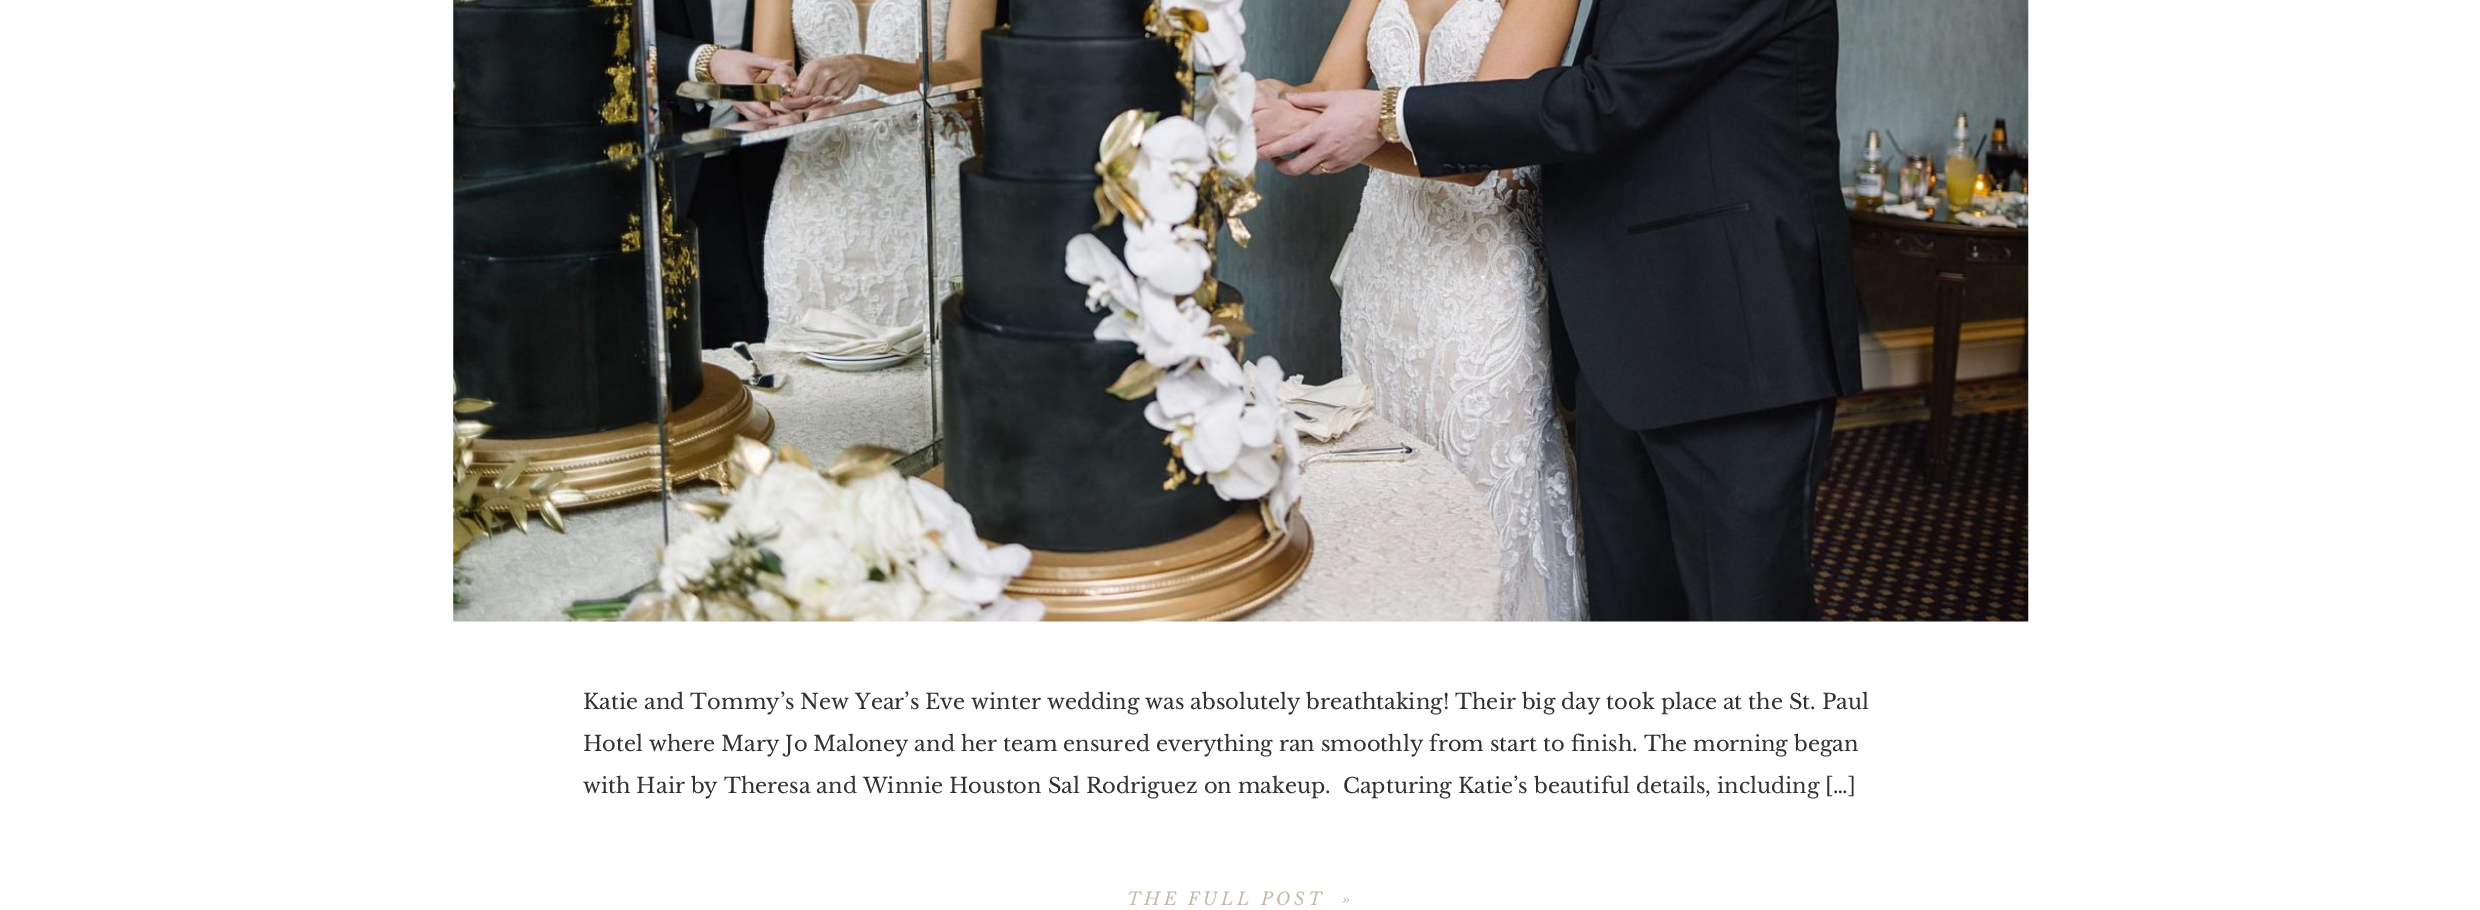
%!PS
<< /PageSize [2480 910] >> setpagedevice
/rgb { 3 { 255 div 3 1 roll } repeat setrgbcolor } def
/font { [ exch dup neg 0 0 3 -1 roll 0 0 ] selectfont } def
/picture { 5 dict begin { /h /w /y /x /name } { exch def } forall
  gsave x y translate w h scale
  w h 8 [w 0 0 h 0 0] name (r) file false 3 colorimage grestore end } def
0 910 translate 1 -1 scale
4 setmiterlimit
255 255 255 rgb
0 0 2480 910 rectfill
(img/1.rgb) 453 0 1576 622 picture
/LibreBaskerville-Regular 21 font
49 49 49 rgb
[
  [(Katie and Tommy’s New Year’s Eve winter wedding was absolutely breathtaking! Their big day took place at the St. Paul) 583 709]
  [(Hotel where Mary Jo Maloney and her team ensured everything ran smoothly from start to finish. The morning began) 583 751]
  [(with Hair by Theresa and Winnie Houston Sal Rodriguez on makeup.  Capturing Katie’s beautiful details, including […]) 583 793]
] { aload pop moveto show } forall
/LibreBaskerville-Italic 17.5 font
197 184 168 rgb
1127 905 moveto 3.5 0 (THE FULL POST  ») ashow
showpage
